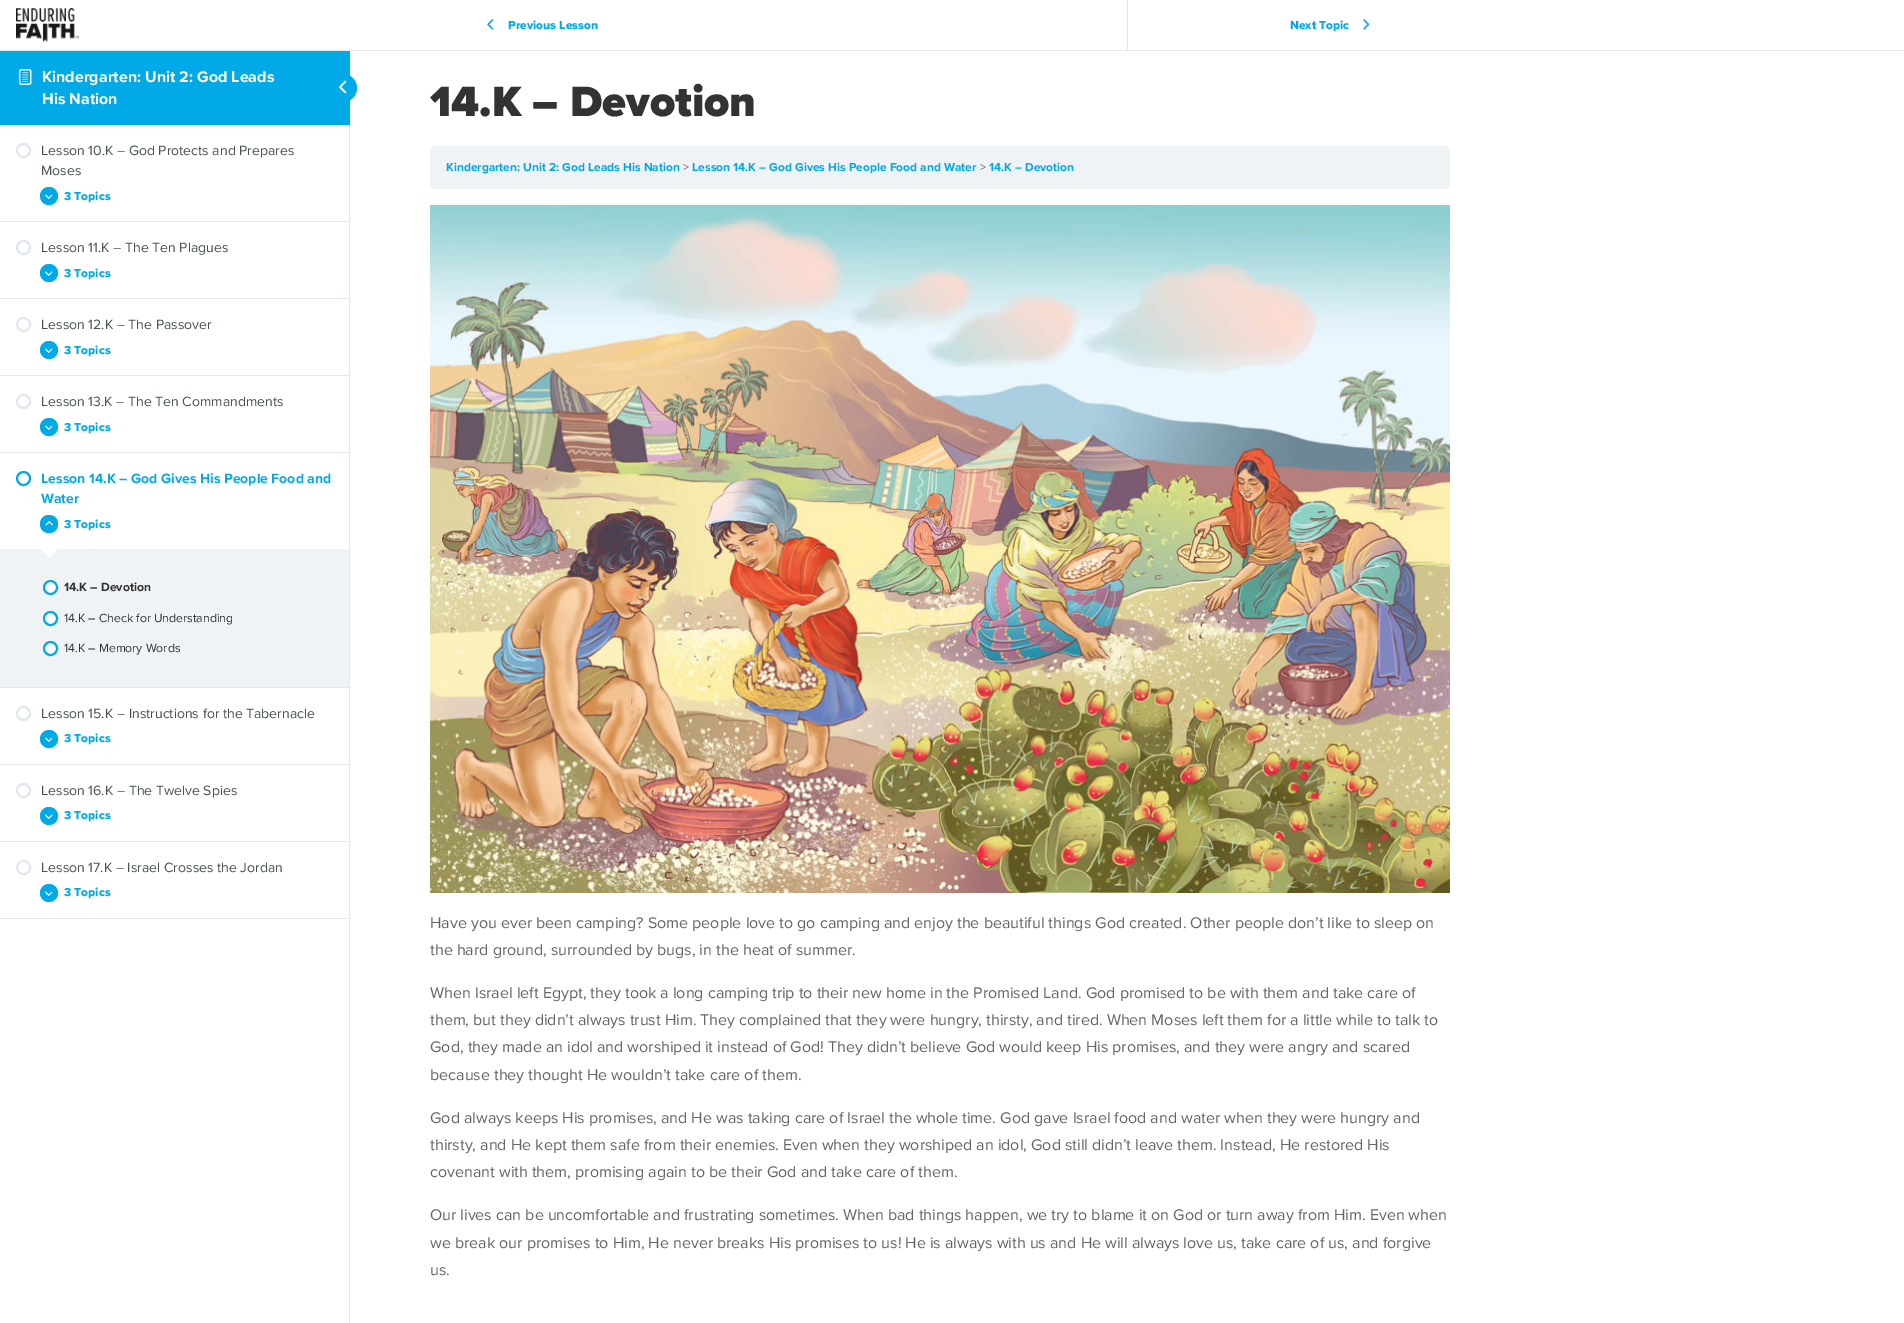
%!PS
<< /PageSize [1904 1323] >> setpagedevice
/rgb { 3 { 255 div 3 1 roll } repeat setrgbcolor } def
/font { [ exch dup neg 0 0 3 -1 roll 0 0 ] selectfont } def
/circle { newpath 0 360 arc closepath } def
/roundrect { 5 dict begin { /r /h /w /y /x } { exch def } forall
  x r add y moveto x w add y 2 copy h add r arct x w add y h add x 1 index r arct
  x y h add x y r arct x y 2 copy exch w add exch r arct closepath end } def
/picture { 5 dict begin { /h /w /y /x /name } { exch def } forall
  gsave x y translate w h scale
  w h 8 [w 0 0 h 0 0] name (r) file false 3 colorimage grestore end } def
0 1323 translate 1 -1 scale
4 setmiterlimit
255 255 255 rgb
0 0 1904 1323 rectfill
226 231 237 rgb
349 125 1 1198 rectfill
1 170 230 rgb
0 51 350 74 rectfill
(img/1.rgb) 18 69 14 16 picture
328 74 29 28 14 roundrect fill
(img/2.rgb) 339 80 8 14 picture
226 231 237 rgb
0 221 349 1 rectfill
2 setlinewidth
23.5 150.5 6.5 circle stroke
1 170 230 rgb
49 196 9 circle fill
(img/3.rgb) 45 194 8 5 picture
226 231 237 rgb
0 298 349 1 rectfill
23.5 247.5 6.5 circle stroke
1 170 230 rgb
49 273 9 circle fill
(img/3.rgb) 45 271 8 5 picture
226 231 237 rgb
0 375 349 1 rectfill
23.5 324.5 6.5 circle stroke
1 170 230 rgb
49 350 9 circle fill
(img/3.rgb) 45 348 8 5 picture
226 231 237 rgb
0 452 349 1 rectfill
23.5 401.5 6.5 circle stroke
1 170 230 rgb
49 427 9 circle fill
(img/3.rgb) 45 425 8 5 picture
226 231 237 rgb
0 687 349 1 rectfill
1 170 230 rgb
23.5 478.5 6.5 circle stroke
49 533 moveto 37 533 37 515 49 515 curveto 61 515 61 533 49 533 curveto closepath fill
(img/4.rgb) 45 521 8 5 picture
240 243 246 rgb
0 549 349 138 rectfill
gsave
0 549 349 138 rectclip
255 255 255 rgb
40.5 548.5 moveto 49.5 539.5 lineto 58.5 548.5 lineto 49.5 557.5 lineto closepath fill
grestore
255 255 255 rgb
50.5 587.5 6.5 circle gsave fill grestore
1 170 230 rgb
stroke
255 255 255 rgb
50.5 618.5 6.5 circle gsave fill grestore
1 170 230 rgb
stroke
255 255 255 rgb
50.5 648.5 6.5 circle gsave fill grestore
1 170 230 rgb
stroke
226 231 237 rgb
0 764 349 1 rectfill
23.5 713.5 6.5 circle stroke
1 170 230 rgb
49 739 9 circle fill
(img/3.rgb) 45 737 8 5 picture
226 231 237 rgb
0 841 349 1 rectfill
23.5 790.5 6.5 circle stroke
1 170 230 rgb
49 816 9 circle fill
(img/3.rgb) 45 814 8 5 picture
226 231 237 rgb
0 918 349 1 rectfill
23.5 867.5 6.5 circle stroke
1 170 230 rgb
49 893 9 circle fill
(img/3.rgb) 45 891 8 5 picture
226 231 237 rgb
0 50 1904 1 rectfill
(img/5.rgb) 16 8 63 34 picture
1127 0 1 50 rectfill
(img/6.rgb) 487 19 7 11 picture
(img/7.rgb) 1363 19 7 11 picture
240 243 246 rgb
430 146 1020 43 6 roundrect fill
(img/8.rgb) 430 205 1020 688 picture
/ProximaNova-Bold 16 font
255 255 255 rgb
42 82 moveto (Kindergarten: Unit 2: God Leads) show
42 104 moveto (His Nation) show
/ProximaNova-Regular 14 font
73 82 85 rgb
41 155 moveto (Lesson 10.K – God Protects and Prepares) show
41 175 moveto (Moses) show
/ProximaNova-ExtraBold 12 font
1 170 230 rgb
64 200 moveto (3 Topics) show
/ProximaNova-Regular 14 font
73 82 85 rgb
41 252 moveto (Lesson 11.K – The Ten Plagues) show
/ProximaNova-ExtraBold 12 font
1 170 230 rgb
64 277 moveto (3 Topics) show
/ProximaNova-Regular 14 font
73 82 85 rgb
41 329 moveto (Lesson 12.K – The Passover) show
/ProximaNova-ExtraBold 12 font
1 170 230 rgb
64 354 moveto (3 Topics) show
/ProximaNova-Regular 14 font
73 82 85 rgb
41 406 moveto (Lesson 13.K – The Ten Commandments) show
/ProximaNova-ExtraBold 12 font
1 170 230 rgb
64 431 moveto (3 Topics) show
/ProximaNova-Bold 14 font
41 483 moveto (Lesson 14.K – God Gives His People Food and) show
41 503 moveto (Water) show
/ProximaNova-ExtraBold 12 font
64 528 moveto (3 Topics) show
/ProximaNova-Bold 12.25 font
51 51 51 rgb
64 591 moveto (14.K – Devotion) show
/ProximaNova-Regular 12.25 font
64 622 moveto (14.K – Check for Understanding) show
64 652 moveto (14.K – Memory Words) show
/ProximaNova-Regular 14 font
73 82 85 rgb
41 718 moveto (Lesson 15.K – Instructions for the Tabernacle) show
/ProximaNova-ExtraBold 12 font
1 170 230 rgb
64 742 moveto (3 Topics) show
/ProximaNova-Regular 14 font
73 82 85 rgb
41 795 moveto (Lesson 16.K – The Twelve Spies) show
/ProximaNova-ExtraBold 12 font
1 170 230 rgb
64 819 moveto (3 Topics) show
/ProximaNova-Regular 14 font
73 82 85 rgb
41 872 moveto (Lesson 17.K – Israel Crosses the Jordan) show
/ProximaNova-ExtraBold 12 font
1 170 230 rgb
[
  [(3 Topics) 64 896]
  [(Previous Lesson) 508 29]
  [(Next Topic) 1290 29]
] { aload pop moveto show } forall
/ProximaNova-Black 44 font
51 51 51 rgb
430 116 moveto (14.K – Devotion) show
/ProximaNova-Bold 12 font
1 170 230 rgb
446 171 moveto (Kindergarten: Unit 2: God Leads His Nation) show
/ProximaNova-Regular 12 font
102 102 102 rgb
683 171 moveto (>) show
/ProximaNova-Bold 12 font
1 170 230 rgb
692 171 moveto (Lesson 14.K – God Gives His People Food and Water) show
/ProximaNova-Regular 12 font
102 102 102 rgb
980 171 moveto (>) show
/ProximaNova-Bold 12 font
1 170 230 rgb
989 171 moveto (14.K – Devotion) show
/ProximaNova-Regular 16 font
102 102 102 rgb
[
  [(Have you ever been camping? Some people love to go camping and enjoy the beautiful things God created. Other people don’t like to sleep on) 430 928]
  [(the hard ground, surrounded by bugs, in the heat of summer.) 430 955]
  [(When Israel left Egypt, they took a long camping trip to their new home in the Promised Land. God promised to be with them and take care of) 430 998]
  [(them, but they didn’t always trust Him. They complained that they were hungry, thirsty, and tired. When Moses left them for a little while to talk to) 430 1025]
  [(God, they made an idol and worshiped it instead of God! They didn’t believe God would keep His promises, and they were angry and scared) 430 1052]
  [(because they thought He wouldn’t take care of them.) 430 1080]
  [(God always keeps His promises, and He was taking care of Israel the whole time. God gave Israel food and water when they were hungry and) 430 1123]
  [(thirsty, and He kept them safe from their enemies. Even when they worshiped an idol, God still didn’t leave them. Instead, He restored His) 430 1150]
  [(covenant with them, promising again to be their God and take care of them.) 430 1177]
  [(Our lives can be uncomfortable and frustrating sometimes. When bad things happen, we try to blame it on God or turn away from Him. Even when) 430 1220]
  [(we break our promises to Him, He never breaks His promises to us! He is always with us and He will always love us, take care of us, and forgive) 430 1248]
  [(us.) 430 1275]
] { aload pop moveto show } forall
showpage
